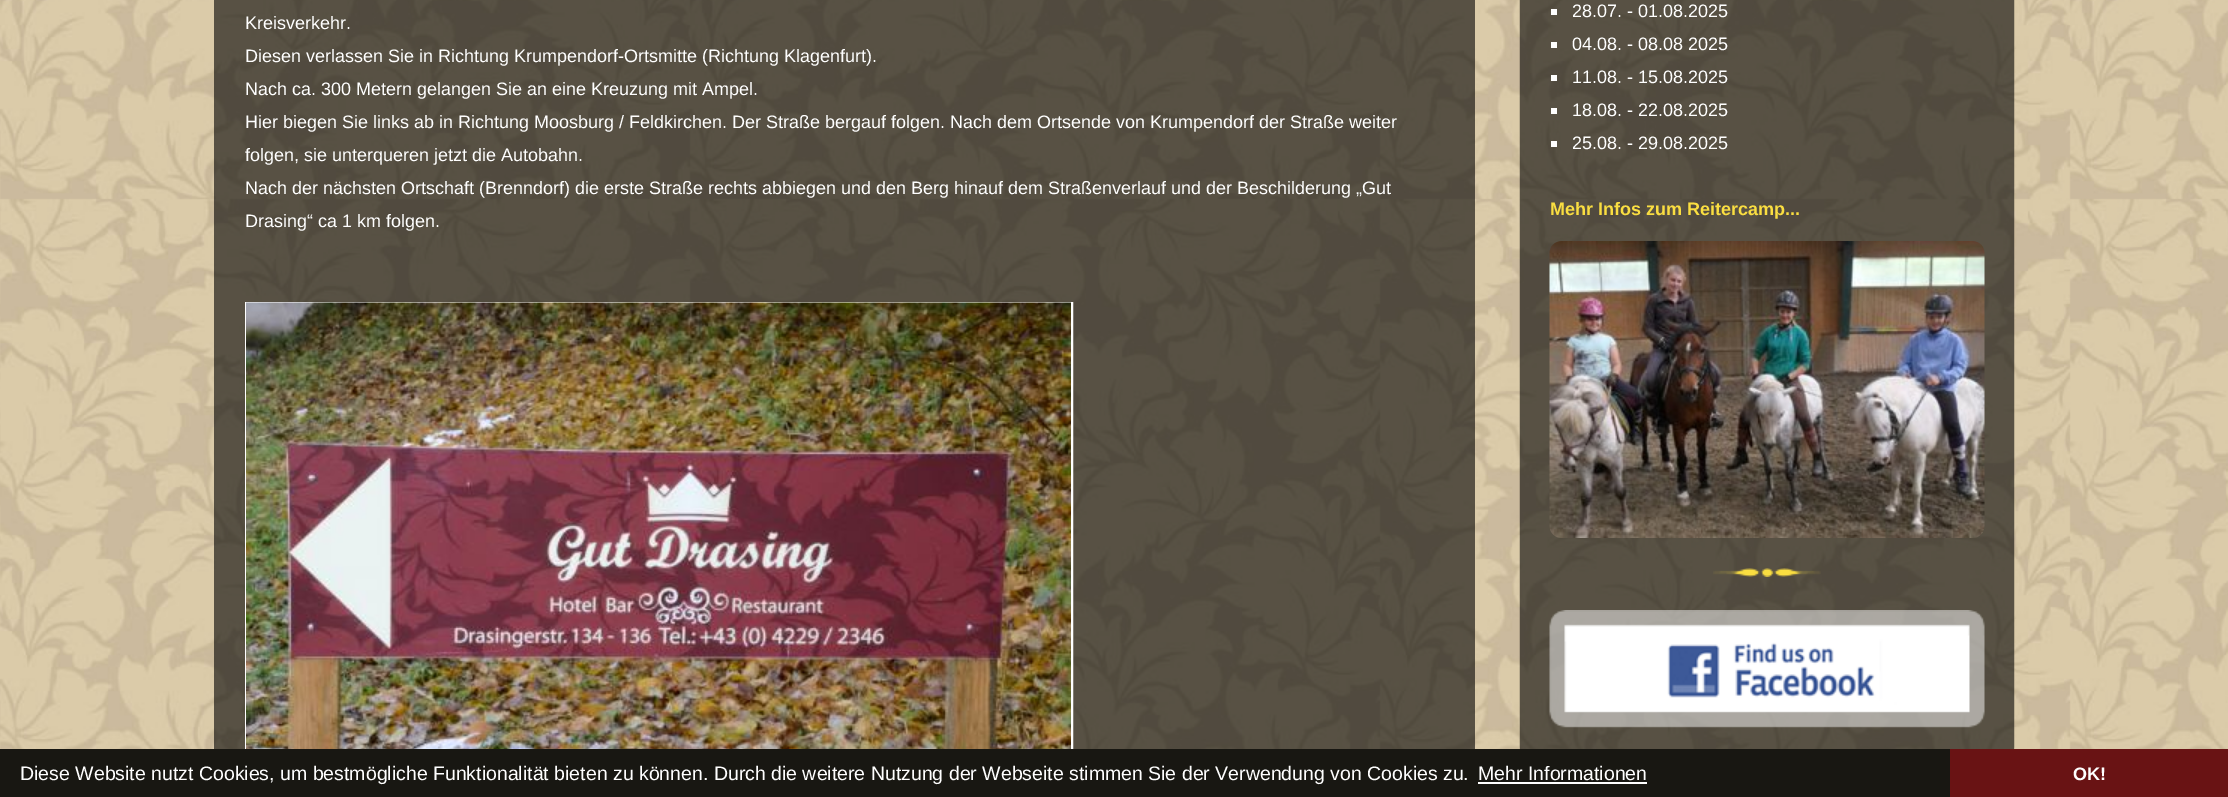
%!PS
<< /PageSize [2228 797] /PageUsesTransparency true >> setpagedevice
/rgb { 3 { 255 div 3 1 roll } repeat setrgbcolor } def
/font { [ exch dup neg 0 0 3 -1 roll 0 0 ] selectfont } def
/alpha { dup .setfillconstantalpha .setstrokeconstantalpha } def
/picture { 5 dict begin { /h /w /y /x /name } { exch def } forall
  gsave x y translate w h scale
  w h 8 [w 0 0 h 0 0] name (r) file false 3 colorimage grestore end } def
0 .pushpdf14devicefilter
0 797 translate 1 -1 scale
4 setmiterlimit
255 255 255 rgb
0 0 2228 797 rectfill
(img/1.rgb) 0 0 2228 749 picture
0.6 alpha
0 0 0 rgb
214 0 1261 749 rectfill
1 alpha
255 255 255 rgb
2 setlinewidth
246 303 826 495 rectstroke
(img/2.rgb) 246 302 825 447 picture
(img/3.rgb) 1519 0 496 749 picture
[
  [1551 9 6 6 255 255 255]
  [1551 42 6 6 255 255 255]
  [1551 75 6 6 255 255 255]
  [1551 108 6 6 255 255 255]
  [1551 141 6 6 255 255 255]
] { aload pop rgb rectfill } forall
(img/4.rgb) 1549 241 436 297 picture
(img/5.rgb) 1713 568 108 9 picture
(img/6.rgb) 1549 610 436 118 picture
[
  [0 749 1950 48 24 23 18]
  [1478 782 169 2 255 255 255]
  [1950 749 278 48 105 19 20]
] { aload pop rgb rectfill } forall
/LiberationSans-Regular 18 font
255 255 255 rgb
[
  [(Kreisverkehr.) 245 29]
  [(Diesen verlassen Sie in Richtung Krumpendorf-Ortsmitte \(Richtung Klagenfurt\).) 245 62]
  [(Nach ca. 300 Metern gelangen Sie an eine Kreuzung mit Ampel.) 245 95]
  [(Hier biegen Sie links ab in Richtung Moosburg / Feldkirchen. Der Straße bergauf folgen. Nach dem Ortsende von Krumpendorf der Straße weiter) 245 128]
  [(folgen, sie unterqueren jetzt die Autobahn.) 245 161]
  [(Nach der nächsten Ortschaft \(Brenndorf\) die erste Straße rechts abbiegen und den Berg hinauf dem Straßenverlauf und der Beschilderung „Gut) 245 194]
  [(Drasing“ ca 1 km folgen.) 245 227]
  [(28.07. - 01.08.2025) 1572 17]
  [(04.08. - 08.08 2025) 1572 50]
  [(11.08. - 15.08.2025) 1572 83]
  [(18.08. - 22.08.2025) 1572 116]
  [(25.08. - 29.08.2025) 1572 149]
] { aload pop moveto show } forall
/LiberationSans-Bold 18 font
250 222 65 rgb
1550 215 moveto (Mehr Infos zum Reitercamp...) show
/LiberationSans-Regular 19.5 font
255 255 255 rgb
20 780 moveto (Diese Website nutzt Cookies, um bestmögliche Funktionalität bieten zu können. Durch die weitere Nutzung der Webseite stimmen Sie der Verwendung von Cookies zu.) show
1478 780 moveto (Mehr Informationen) show
/LiberationSans-Bold 18 font
2073 780 moveto (OK!) show
.poppdf14devicefilter showpage
